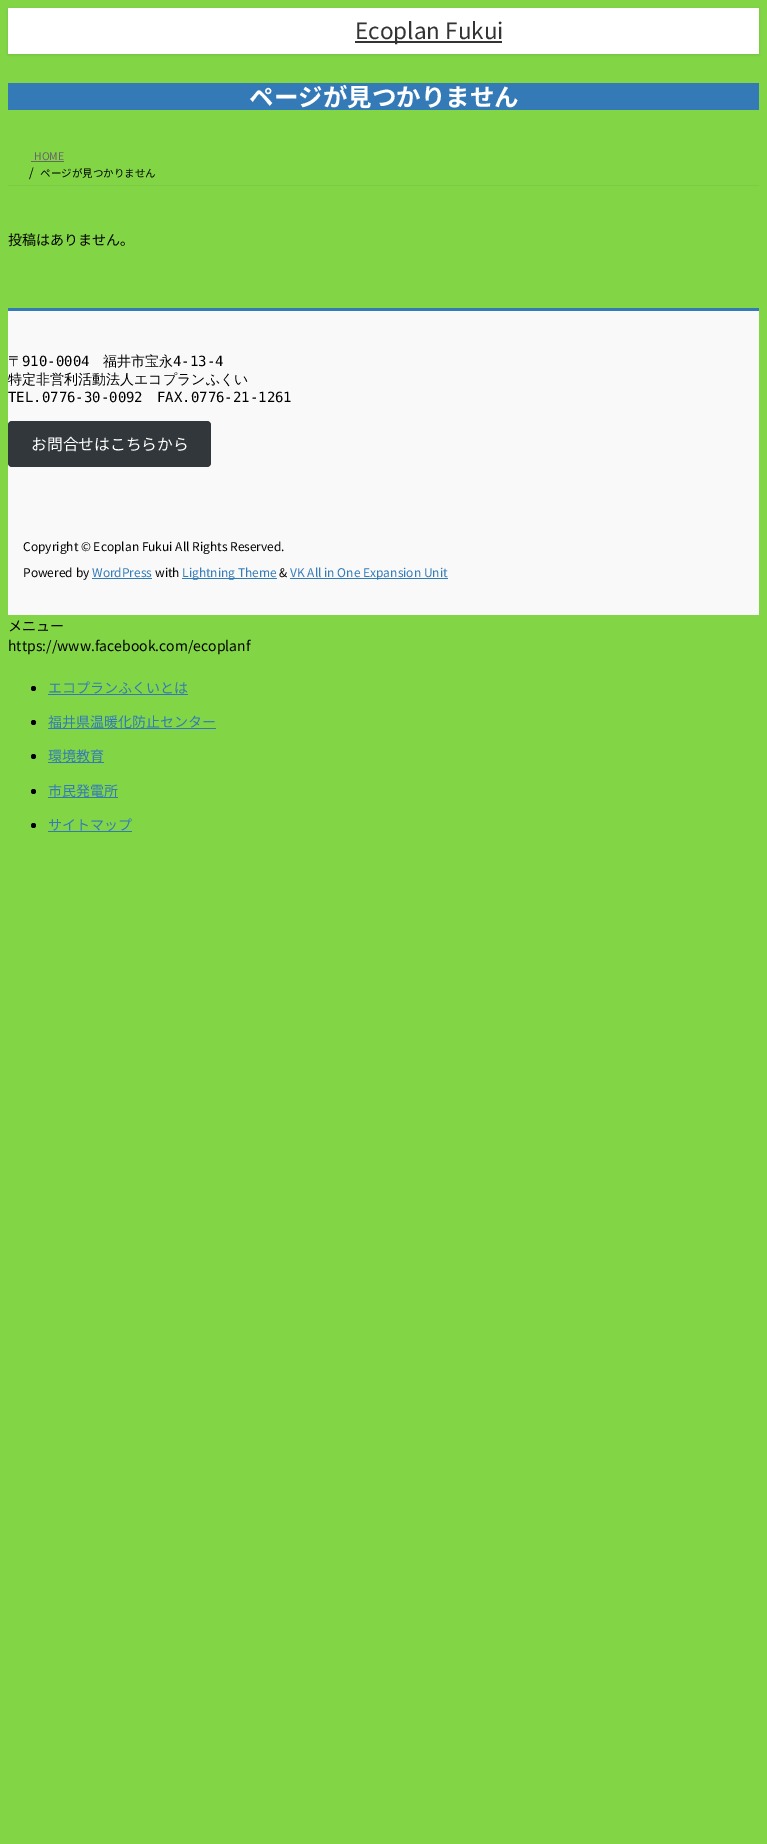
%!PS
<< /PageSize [767 1844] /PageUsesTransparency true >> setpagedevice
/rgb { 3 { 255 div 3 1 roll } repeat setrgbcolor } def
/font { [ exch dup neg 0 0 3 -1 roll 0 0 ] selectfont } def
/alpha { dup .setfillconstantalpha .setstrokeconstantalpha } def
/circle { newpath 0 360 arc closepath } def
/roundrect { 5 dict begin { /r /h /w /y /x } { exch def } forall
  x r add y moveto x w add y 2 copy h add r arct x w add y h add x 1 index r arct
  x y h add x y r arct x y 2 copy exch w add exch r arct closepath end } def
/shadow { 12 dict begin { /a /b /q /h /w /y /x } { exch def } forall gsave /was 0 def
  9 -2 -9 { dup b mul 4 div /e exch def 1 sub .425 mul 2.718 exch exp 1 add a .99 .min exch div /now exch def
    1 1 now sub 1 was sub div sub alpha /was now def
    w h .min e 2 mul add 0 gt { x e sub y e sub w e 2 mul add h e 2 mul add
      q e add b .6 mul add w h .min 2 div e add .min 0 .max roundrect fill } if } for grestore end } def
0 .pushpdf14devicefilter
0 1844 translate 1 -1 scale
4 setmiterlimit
130 214 70 rgb
0 0 767 1844 rectfill
0 0 0 rgb
8 9 751 46 0 1.5 0.1 shadow
[
  [8 8 751 46 255 255 255]
  [355 41 147 2 51 51 51]
  [8 83 751 27 51 122 183]
  [8 185 751 1 124 203 67]
  [31 161 33 1 102 102 102]
  [8 311 751 304 249 249 249]
  [8 308 751 3 51 122 183]
] { aload pop rgb rectfill } forall
50 55 60 rgb
8 421 203 46 4 roundrect fill
[
  [92 578 60 1 51 122 183]
  [182 578 95 1 51 122 183]
  [290 578 158 1 51 122 183]
] { aload pop rgb rectfill } forall
0 0 0 rgb
33.5 688.5 2.5 circle fill
51 122 183 rgb
48 694 140 1 rectfill
0 0 0 rgb
33.5 722.5 2.5 circle fill
51 122 183 rgb
48 728 168 1 rectfill
0 0 0 rgb
33.5 756.5 2.5 circle fill
51 122 183 rgb
48 762 56 1 rectfill
0 0 0 rgb
33.5 791.5 2.5 circle fill
51 122 183 rgb
48 797 70 1 rectfill
0 0 0 rgb
33.5 825.5 2.5 circle fill
51 122 183 rgb
48 831 84 1 rectfill
/NotoSansJP-Regular 22.5 font
51 51 51 rgb
355 39 moveto (Ecoplan Fukui) show
/NotoSansJP-Bold 24.5 font
255 255 255 rgb
249 106 moveto (ページが見つかりません) show
/NotoSansJP-Regular 10.5 font
102 102 102 rgb
34 160 moveto (HOME) show
/NotoSansJP-Regular 12 font
0 0 0 rgb
29 177 moveto (/) show
/NotoSansJP-Regular 10.5 font
40 177 moveto (ページが見つかりません) show
/NotoSansJP-Regular 14 font
8 245 moveto (投稿はありません。) show
/WenQuanYiZenHei-Medium 14 font
8 366 moveto (〒) show
/DejaVuSansMono-Regular 14 font
22 366 moveto (910-0004) show
/WenQuanYiZenHei-Medium 14 font
103 366 moveto (福井市宝永) show
/DejaVuSansMono-Regular 14 font
173 366 moveto (4-13-4) show
/WenQuanYiZenHei-Medium 14 font
8 384 moveto (特定非営利活動法人エコプランふくい) show
/DejaVuSansMono-Regular 14 font
8 402 moveto (TEL.0776-30-0092) show
157 402 moveto (FAX.0776-21-1261) show
/NotoSansJP-Regular 15.75 font
255 255 255 rgb
31 450 moveto (お問合せはこちらから) show
/NotoSansJP-Regular 12 font
0 0 0 rgb
23 551 moveto (Copyright © Ecoplan Fukui All Rights Reserved.) show
23 577 moveto (Powered by) show
51 122 183 rgb
92 577 moveto (WordPress) show
0 0 0 rgb
155 577 moveto (with) show
51 122 183 rgb
182 577 moveto (Lightning Theme) show
0 0 0 rgb
279 577 moveto (&) show
51 122 183 rgb
290 577 moveto (VK All in One Expansion Unit) show
/NotoSansJP-Regular 14 font
0 0 0 rgb
8 631 moveto (メニュー) show
8 651 moveto (https://www.facebook.com/ecoplanf) show
51 122 183 rgb
[
  [(エコプランふくいとは) 48 693]
  [(福井県温暖化防止センター) 48 727]
  [(環境教育) 48 761]
  [(市民発電所) 48 796]
  [(サイトマップ) 48 830]
] { aload pop moveto show } forall
.poppdf14devicefilter showpage
